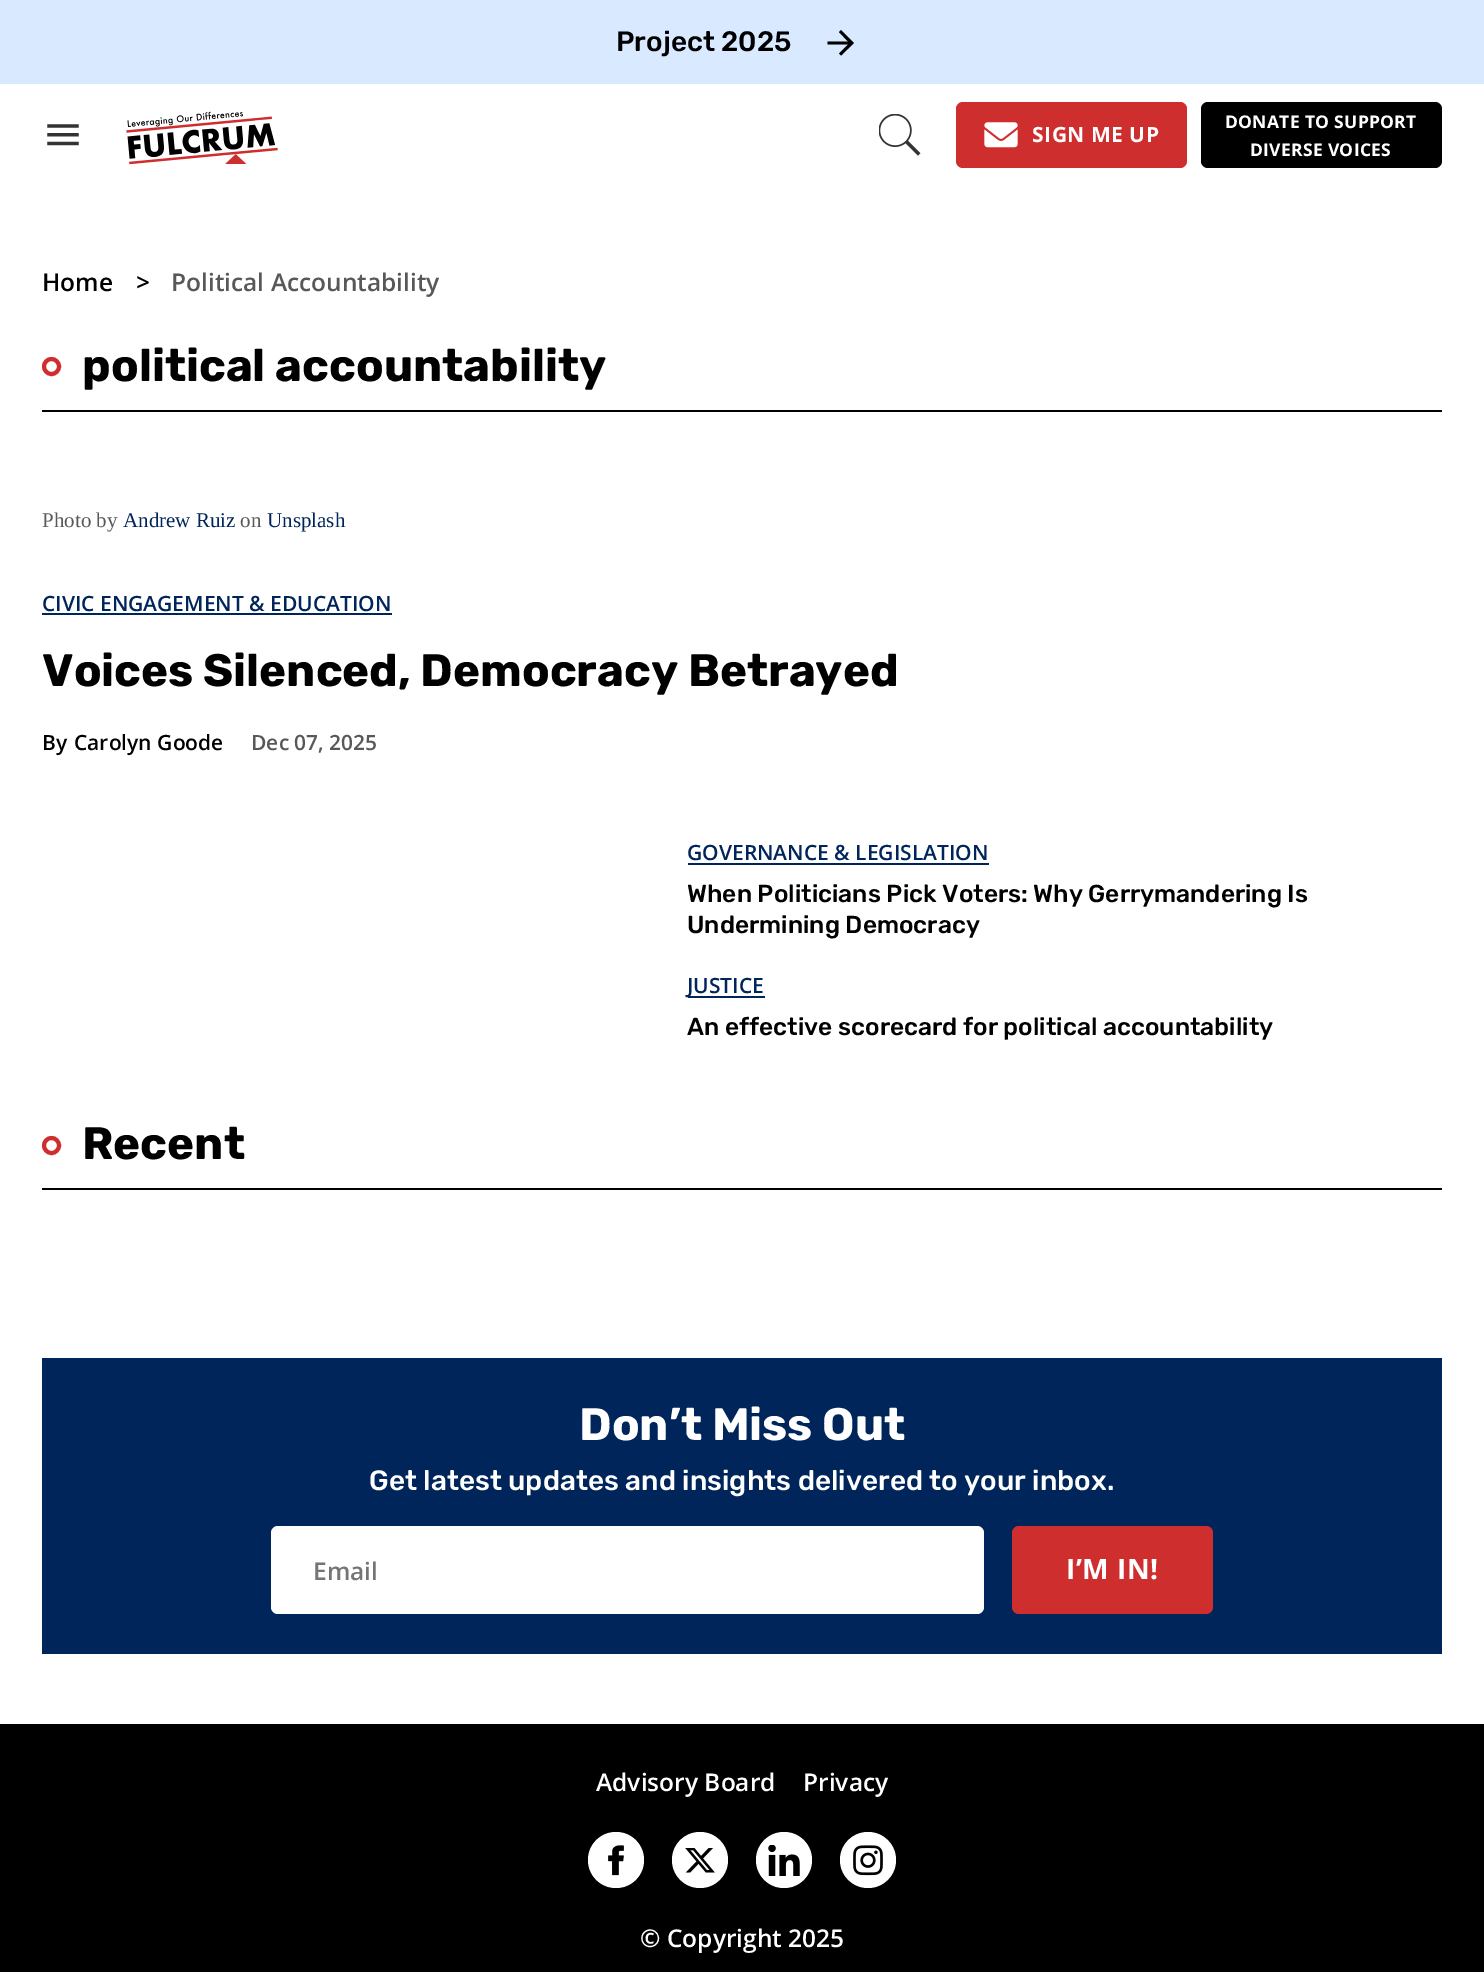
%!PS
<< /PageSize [1484 1972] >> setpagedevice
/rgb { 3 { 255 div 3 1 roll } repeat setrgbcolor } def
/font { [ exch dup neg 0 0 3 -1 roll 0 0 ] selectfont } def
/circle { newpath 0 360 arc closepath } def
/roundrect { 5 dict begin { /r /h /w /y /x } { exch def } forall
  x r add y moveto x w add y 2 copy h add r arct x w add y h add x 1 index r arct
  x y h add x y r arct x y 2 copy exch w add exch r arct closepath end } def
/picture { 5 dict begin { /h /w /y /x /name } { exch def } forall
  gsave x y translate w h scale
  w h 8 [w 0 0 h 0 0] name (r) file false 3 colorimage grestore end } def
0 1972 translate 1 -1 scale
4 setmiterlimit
255 255 255 rgb
0 0 1484 1972 rectfill
217 233 255 rgb
0 0 1484 84 rectfill
0 0 0 rgb
841 30 moveto 839 32 lineto 848 41.5 lineto 827.5 41.5 lineto 827.5 44.5 lineto 848 44.5 lineto 839 53.5 lineto 841 55.5 lineto 854 43 lineto closepath fill
(img/1.rgb) 47 124 32 22 picture
(img/2.rgb) 126 111 152 54 picture
(img/3.rgb) 879 114 42 42 picture
207 46 46 rgb
956 102 231 66 7 roundrect fill
(img/4.rgb) 984 122 34 26 picture
0 0 0 rgb
1201 102 241 66 7 roundrect fill
42 410 1400 2 rectfill
207 46 46 rgb
4 setlinewidth
51.5 366.5 7.5 circle stroke
[
  [42 613 350 2 0 37 91]
  [688 863 301 2 0 37 91]
  [688 996 77 2 0 37 91]
  [42 1188 1400 2 0 0 0]
] { aload pop rgb rectfill } forall
207 46 46 rgb
51.5 1145.5 7.5 circle stroke
0 37 91 rgb
42 1358 1400 296 rectfill
255 255 255 rgb
271 1526 713 88 7 roundrect fill
207 46 46 rgb
1012 1526 201 88 7 roundrect fill
0 0 0 rgb
0 1724 1484 248 rectfill
255 255 255 rgb
616 1860 28 circle fill
(img/5.rgb) 608 1845 16 31 picture
700 1860 28 circle fill
(img/6.rgb) 685 1848 30 25 picture
784 1860 28 circle fill
(img/7.rgb) 768 1845 32 31 picture
868 1860 28 circle fill
(img/8.rgb) 853 1845 30 31 picture
/Rubik-Light 28 font
0 0 0 rgb
616 51 moveto (Project 2025) show
/OpenSans-Bold 21 font
255 255 255 rgb
1032 142 moveto 0.5 0 (SIGN ME UP) ashow
/OpenSans-Bold 17.5 font
1225 128 moveto 0.3 0 (DONATE TO SUPPORT) ashow
1250 156 moveto 0.3 0 (DIVERSE VOICES) ashow
/OpenSans-SemiBold 24.5 font
0 0 0 rgb
42 291 moveto (Home) show
136 291 moveto (>) show
89 87 87 rgb
171 291 moveto (Political Accountability) show
/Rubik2-Light 45.5 font
0 0 0 rgb
82 381 moveto (political accountability) show
/LiberationSerif-Regular 21 font
89 87 87 rgb
42 527 moveto (Photo by) show
0 37 91 rgb
123 527 moveto (Andrew Ruiz) show
89 87 87 rgb
240 527 moveto (on) show
0 37 91 rgb
267 527 moveto (Unsplash) show
/OpenSans-SemiBold 21 font
42 611 moveto (CIVIC ENGAGEMENT & EDUCATION) show
/Rubik2-Light 45.5 font
0 0 0 rgb
42 686 moveto (Voices Silenced, Democracy Betrayed) show
/OpenSans-SemiBold 21 font
42 750 moveto (By) show
74 750 moveto (Carolyn Goode) show
89 87 87 rgb
251 750 moveto (Dec 07, 2025) show
0 37 91 rgb
687 860 moveto (GOVERNANCE & LEGISLATION) show
/Rubik-Light 24.5 font
0 0 0 rgb
687 902 moveto (When Politicians Pick Voters: Why Gerrymandering Is) show
687 933 moveto (Undermining Democracy) show
/OpenSans-SemiBold 21 font
0 37 91 rgb
687 993 moveto (JUSTICE) show
/Rubik-Light 24.5 font
0 0 0 rgb
687 1035 moveto (An effective scorecard for political accountability) show
/Rubik2-Light 45.5 font
82 1159 moveto (Recent) show
255 255 255 rgb
579 1440 moveto (Don’t Miss Out) show
/Rubik-Light 28 font
369 1490 moveto (Get latest updates and insights delivered to your inbox.) show
/OpenSans-SemiBold 24.5 font
117 117 117 rgb
313 1580 moveto (Email) show
/OpenSans-Bold 28 font
255 255 255 rgb
1066 1579 moveto 0.5 0 (I’M IN!) ashow
/OpenSans-SemiBold 24.5 font
[
  [(Advisory Board) 596 1791]
  [(Privacy) 803 1791]
  [(© Copyright 2025) 640 1947]
] { aload pop moveto show } forall
showpage
